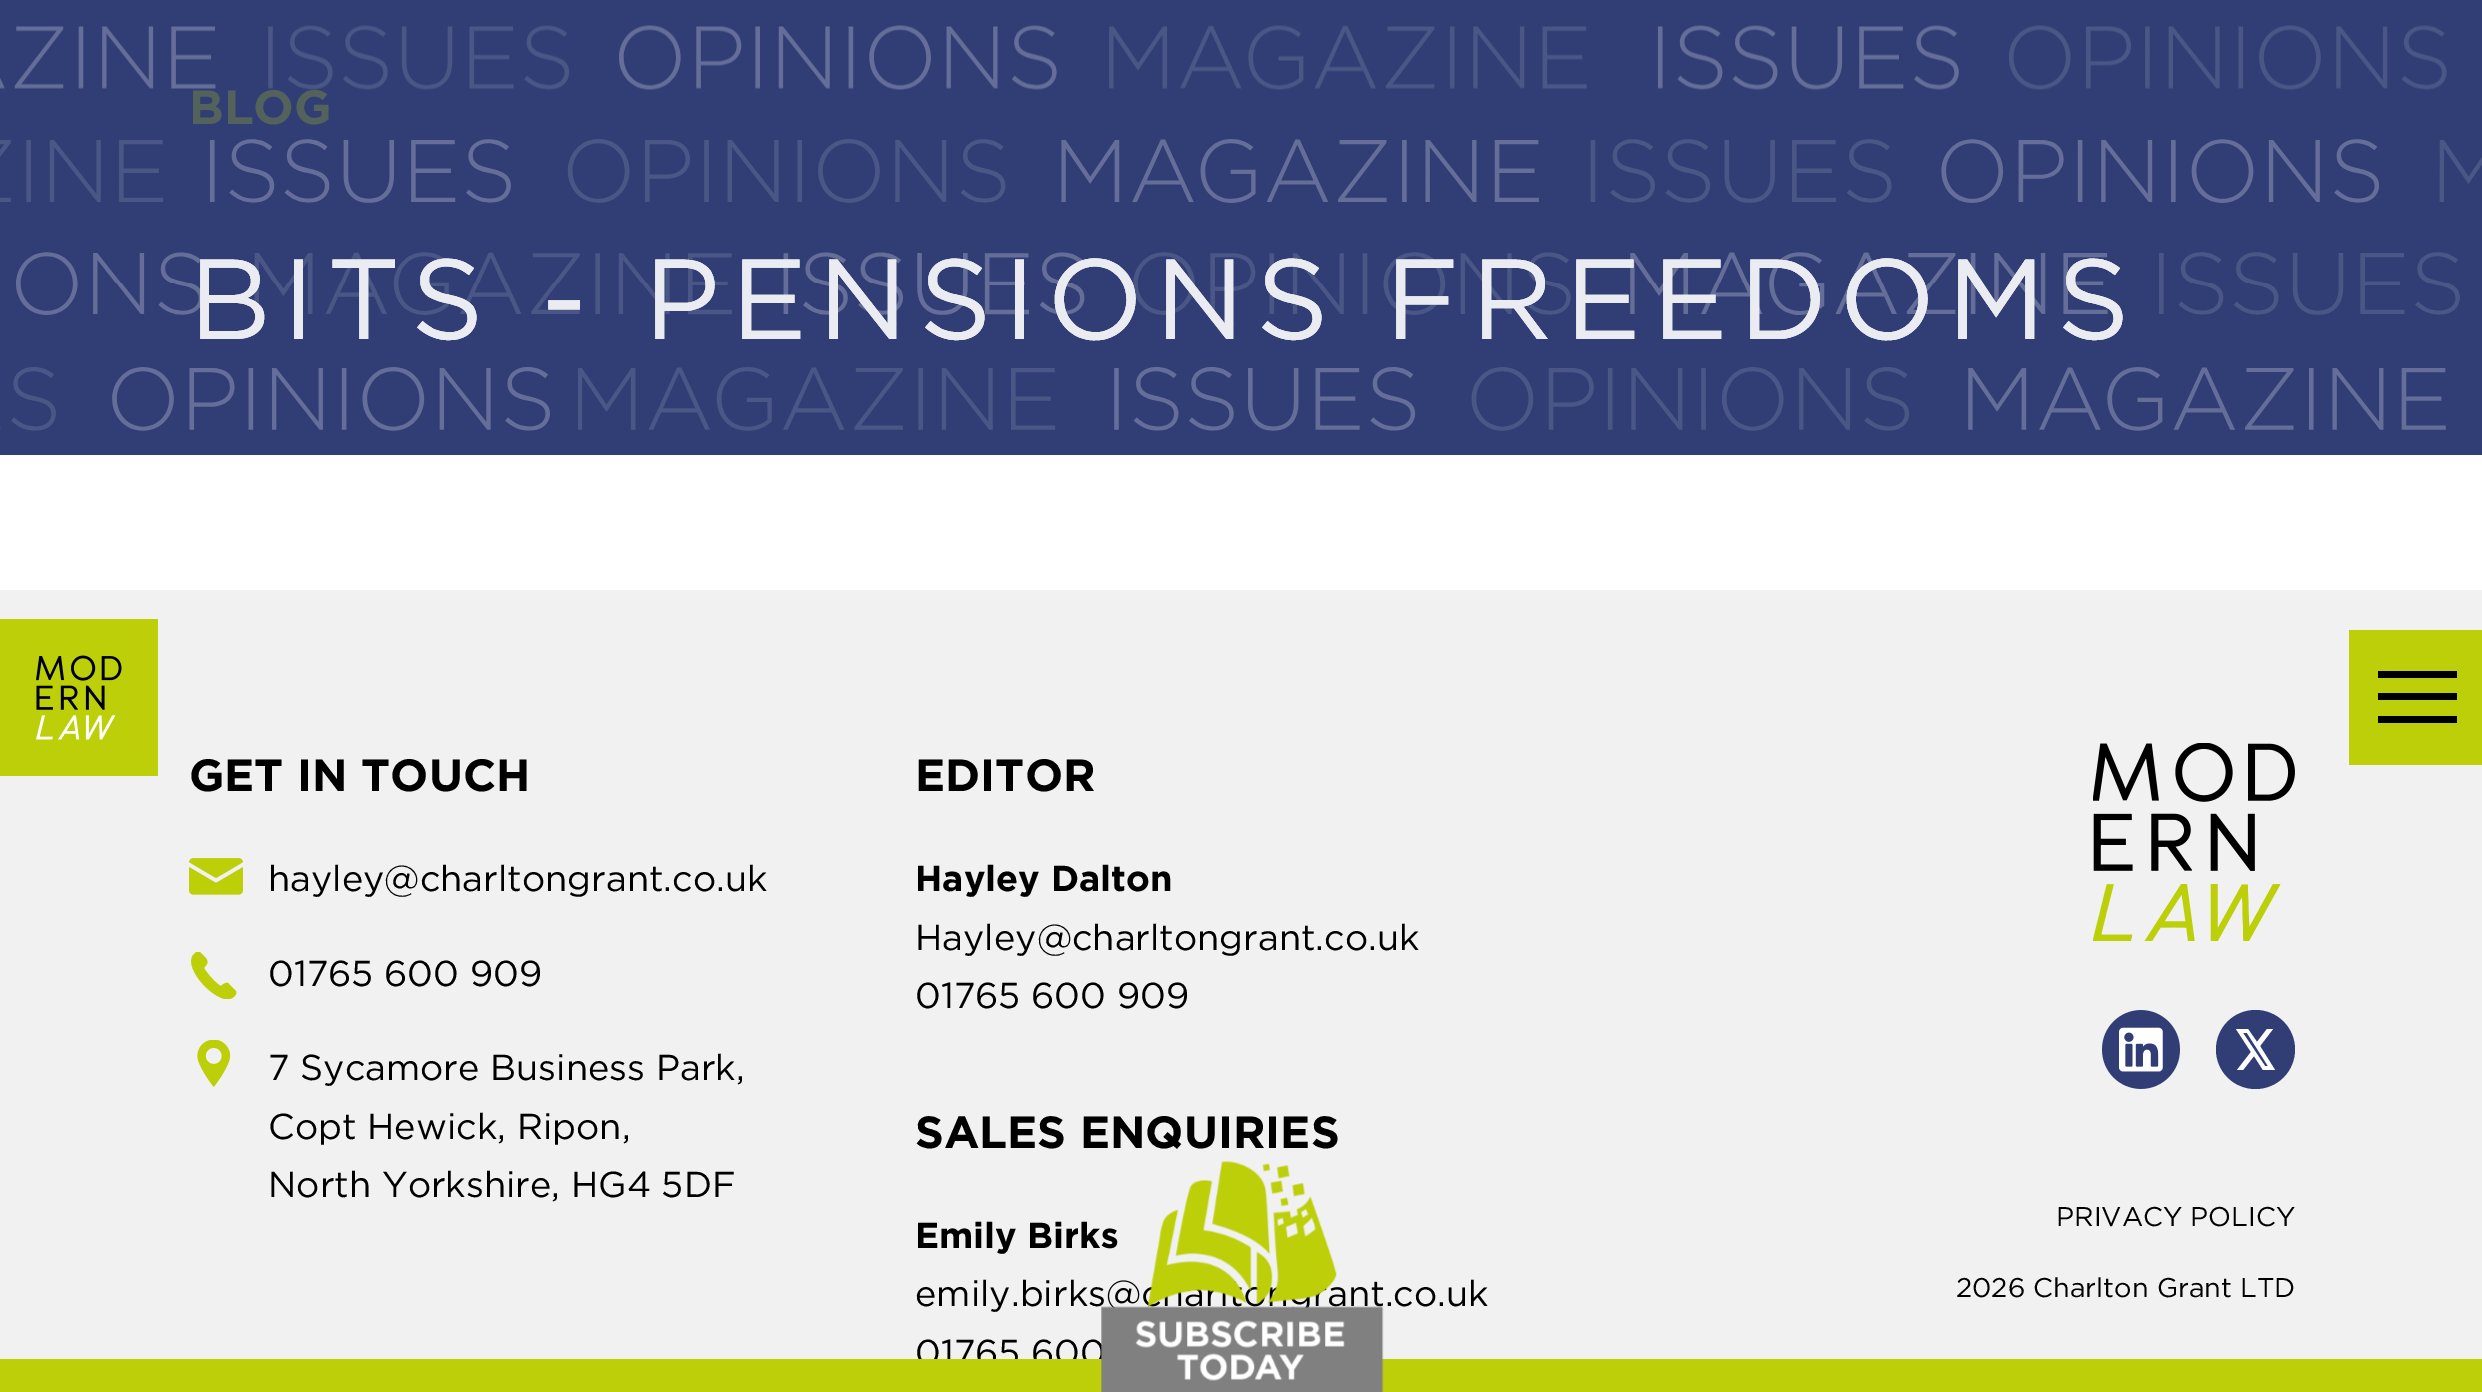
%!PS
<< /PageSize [2482 1392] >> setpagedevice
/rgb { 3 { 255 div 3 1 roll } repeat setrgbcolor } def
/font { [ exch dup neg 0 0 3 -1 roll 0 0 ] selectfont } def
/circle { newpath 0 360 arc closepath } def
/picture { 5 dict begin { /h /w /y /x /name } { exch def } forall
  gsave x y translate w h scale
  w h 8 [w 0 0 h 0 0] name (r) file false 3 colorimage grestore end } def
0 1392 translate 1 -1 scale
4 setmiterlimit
255 255 255 rgb
0 0 2482 1392 rectfill
48 62 117 rgb
0 0 2482 455 rectfill
(img/2.rgb) 0 139 2482 64 picture
(img/3.rgb) 15 252 2445 63 picture
(img/4.rgb) 0 367 2446 64 picture
241 241 241 rgb
0 590 2482 769 rectfill
188 207 9 rgb
0 619 158 157 rectfill
(img/5.rgb) 36 655 86 85 picture
[
  [2349 630 133 135 188 207 9]
  [2378 693 79 7 0 0 0]
  [2378 671 79 7 0 0 0]
  [2378 716 79 7 0 0 0]
] { aload pop rgb rectfill } forall
(img/6.rgb) 189 858 54 37 picture
gsave
189 952 50 47 rectclip
188 207 9 rgb
229 984 moveto 227 981 223 984 221 986 curveto 216 984 206 972 204 968 curveto 208 963 209 962 205 957 curveto 200 952 lineto 199 952 197 952 196 952 curveto 193 955 lineto 183 969 216 1003 230 999 curveto 233 998 239 994 235 990 curveto closepath fill
grestore
(img/7.rgb) 197 1040 34 47 picture
(img/8.rgb) 2093 743 202 198 picture
(img/9.rgb) 2102 1010 78 79 picture
48 62 117 rgb
2255.5 1049.5 39.5 circle fill
255 255 255 rgb
2267 1029 moveto 2273 1029 lineto 2260 1046 lineto 2275 1070 lineto 2263 1070 lineto 2254 1056 lineto 2243 1070 lineto 2237 1070 lineto 2251 1052 lineto 2236 1029 lineto 2248 1029 lineto 2257 1042 lineto closepath 2265 1066 moveto 2268 1066 lineto 2247 1033 lineto 2243 1033 lineto closepath fill
/Gotham-Bold 48 font
83 98 90 rgb
189 124 moveto (BLOG) show
(img/1.rgb) 0 25 2447 65 picture
/Gotham-Regular 113.6 font
255 255 255 rgb
189 339 moveto 11.25 0 (BITS - PENSIONS FREEDOMS) ashow
234 236 241 rgb
189 339 moveto 11.25 0 (BITS - PENSIONS FREEDOMS) ashow
/Gotham-Bold 45 font
0 0 0 rgb
189 791 moveto (GET IN TOUCH) show
/Gotham-Regular 36 font
[
  [(hayley@charltongrant.co.uk) 268 891]
  [(01765 600 909) 268 986]
  [(7 Sycamore Business Park,) 268 1080]
  [(Copt Hewick, Ripon,) 268 1139]
  [(North Yorkshire, HG4 5DF) 268 1197]
] { aload pop moveto show } forall
/Gotham-Bold 45 font
915 791 moveto (EDITOR) show
/Gotham-Bold 36 font
915 891 moveto (Hayley Dalton) show
/Gotham-Regular 36 font
915 950 moveto (Hayley@charltongrant.co.uk) show
915 1008 moveto (01765 600 909) show
/Gotham-Bold 45 font
915 1148 moveto (SALES ENQUIRIES) show
/Gotham-Bold 36 font
915 1248 moveto (Emily Birks) show
/Gotham-Regular 36 font
[
  [(emily.birks) 915 1306]
  [(ant.co.uk) 1327 1306]
  [(01765 600) 915 1365]
] { aload pop moveto show } forall
/Gotham-Regular 27 font
2056 1226 moveto (PRIVACY POLICY) show
1956 1297 moveto (2026 Charlton Grant LTD) show
188 207 9 rgb
0 1359 2482 33 rectfill
(img/10.rgb) 1101 1161 283 231 picture
showpage
